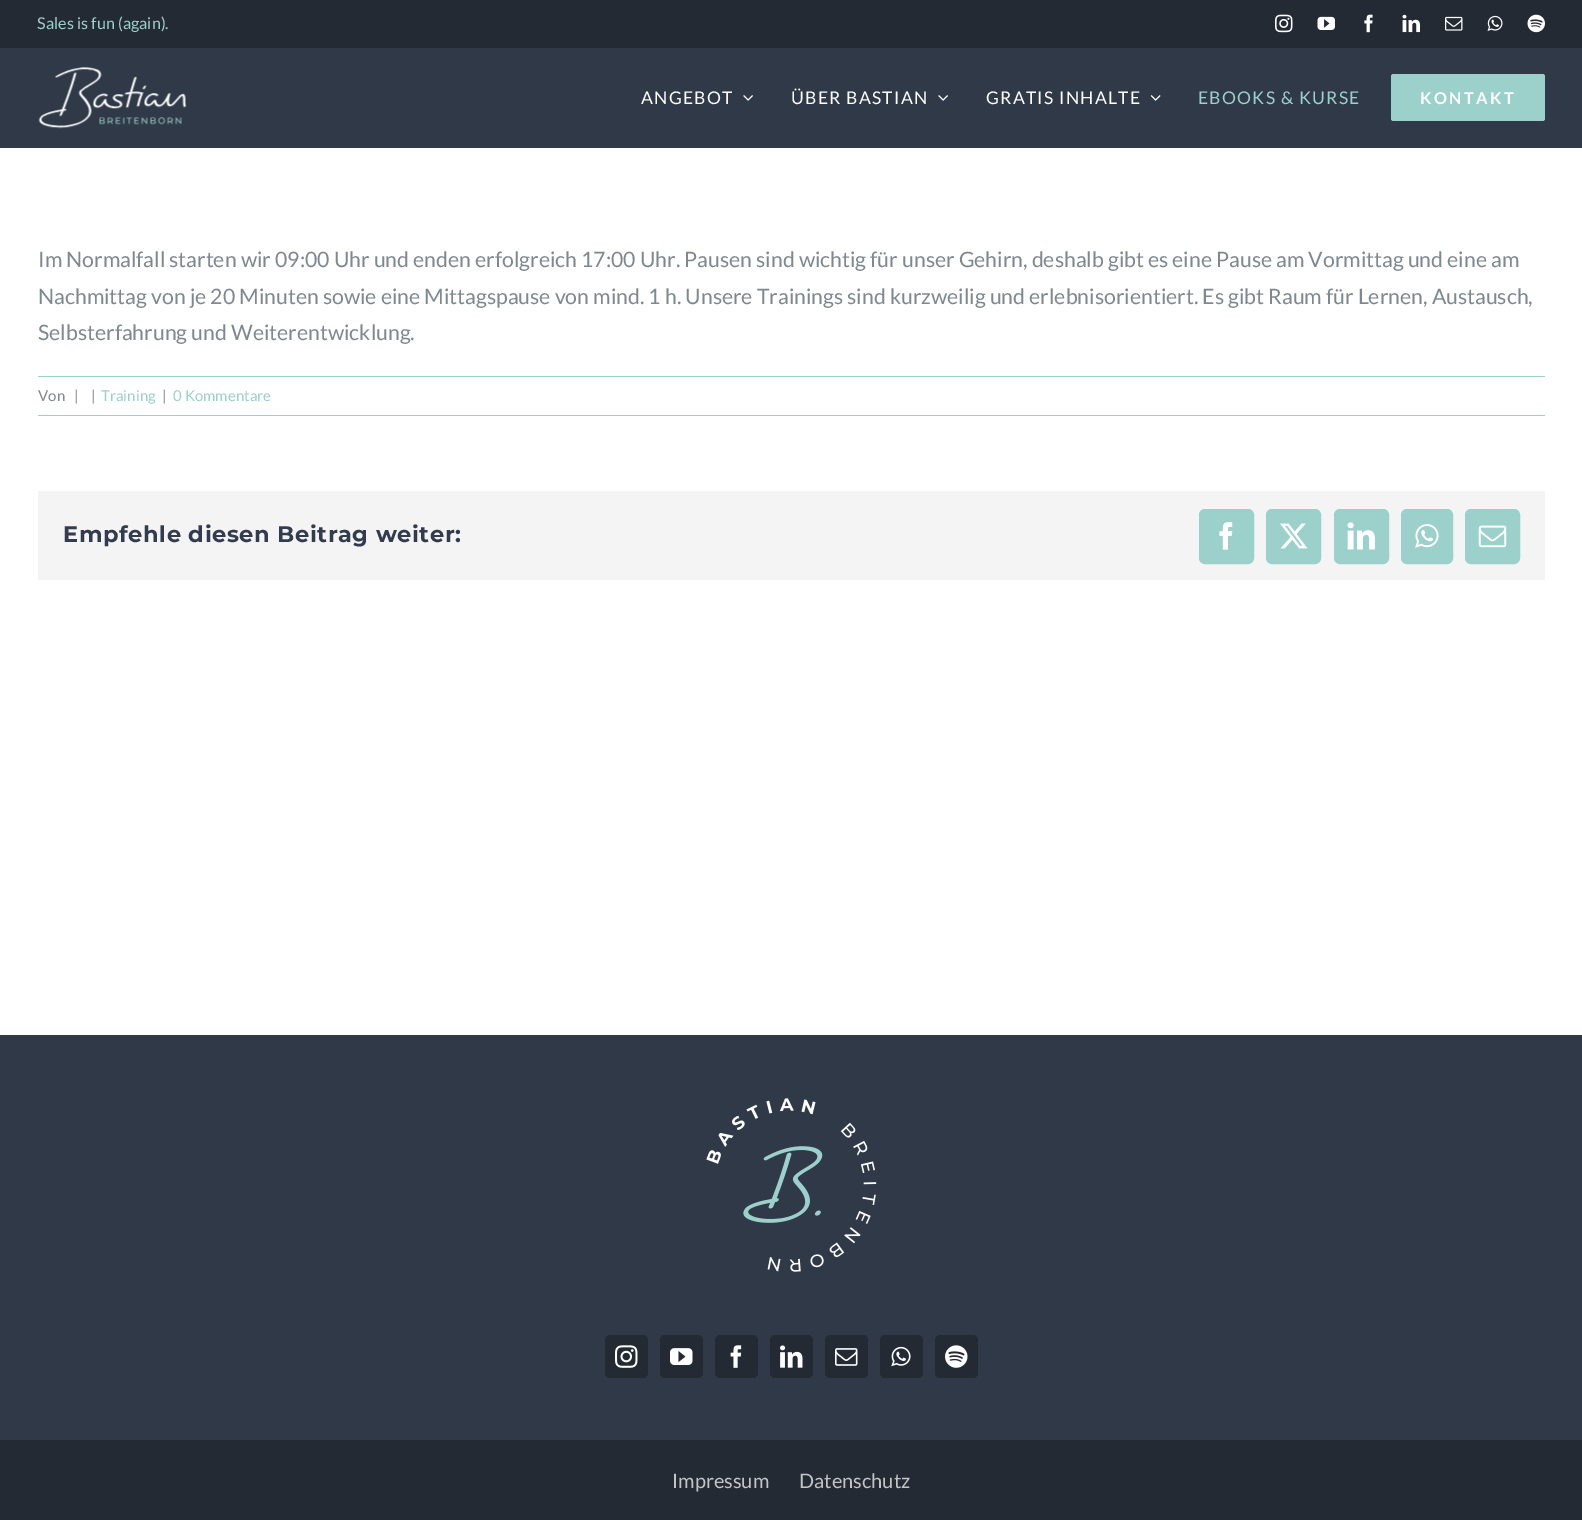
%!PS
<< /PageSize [1582 1520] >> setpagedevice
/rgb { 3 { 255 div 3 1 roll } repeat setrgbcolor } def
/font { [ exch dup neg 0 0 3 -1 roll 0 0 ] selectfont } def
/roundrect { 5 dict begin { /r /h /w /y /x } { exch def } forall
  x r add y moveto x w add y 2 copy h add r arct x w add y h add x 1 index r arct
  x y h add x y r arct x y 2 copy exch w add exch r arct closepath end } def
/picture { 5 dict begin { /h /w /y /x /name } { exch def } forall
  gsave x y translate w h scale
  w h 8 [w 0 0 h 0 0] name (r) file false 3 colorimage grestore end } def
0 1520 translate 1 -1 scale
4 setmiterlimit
255 255 255 rgb
0 0 1582 1520 rectfill
35 42 52 rgb
0 0 1582 48 rectfill
(img/1.rgb) 1275 14 18 19 picture
(img/2.rgb) 1317 16 18 14 picture
(img/3.rgb) 1364 14 9 19 picture
(img/4.rgb) 1402 14 18 19 picture
(img/5.rgb) 1445 16 18 15 picture
(img/6.rgb) 1487 15 16 16 picture
(img/7.rgb) 1527 14 18 19 picture
48 57 71 rgb
0 48 1582 100 rectfill
(img/8.rgb) 38 67 149 62 picture
(img/9.rgb) 743 95 10 6 picture
(img/9.rgb) 938 95 10 6 picture
(img/10.rgb) 1150 95 11 6 picture
156 209 203 rgb
1391 74 154 47 2.5 roundrect fill
[
  [38 376 1507 1 156 209 203]
  [38 415 1507 1 156 209 203]
  [38 491 1507 89 244 244 244]
] { aload pop rgb rectfill } forall
156 209 203 rgb
1199.5 509.5 54 54 5.5 roundrect gsave fill grestore
stroke
(img/11.rgb) 1219 522 14 28 picture
1266.5 509.5 54 54 5.5 roundrect gsave fill grestore
stroke
(img/12.rgb) 1280 523 28 26 picture
1334.5 509.5 54 54 5.5 roundrect gsave fill grestore
stroke
(img/13.rgb) 1347 522 28 28 picture
1401.5 509.5 51 54 5.5 roundrect gsave fill grestore
stroke
(img/14.rgb) 1415 524 24 24 picture
1465.5 509.5 54 54 5.5 roundrect gsave fill grestore
stroke
(img/15.rgb) 1478 525 29 23 picture
48 57 71 rgb
0 1035 1582 405 rectfill
(img/16.rgb) 706 1098 171 174 picture
35 42 52 rgb
605 1335 43 43 5 roundrect fill
(img/17.rgb) 615 1345 23 23 picture
660 1335 43 43 5 roundrect fill
(img/18.rgb) 670 1348 23 17 picture
715 1335 43 43 5 roundrect fill
(img/19.rgb) 730 1345 12 23 picture
770 1335 43 43 5 roundrect fill
(img/20.rgb) 780 1345 23 23 picture
825 1335 43 43 5 roundrect fill
(img/21.rgb) 835 1348 23 18 picture
880 1335 43 43 5 roundrect fill
(img/22.rgb) 891 1346 20 21 picture
935 1335 43 43 5 roundrect fill
(img/23.rgb) 945 1345 23 23 picture
0 1440 1582 80 rectfill
/Lato-Regular 16.25 font
156 209 203 rgb
37 29 moveto (Sales is fun \(again\).) show
/Lato-Regular 17.5 font
255 255 255 rgb
641 104 moveto 1.25 0 (ANGEBOT) ashow
791 104 moveto 1.25 0 (ÜBER BASTIAN) ashow
986 104 moveto 1.25 0 (GRATIS INHALTE) ashow
156 209 203 rgb
1198 104 moveto 1.25 0 (EBOOKS & KURSE) ashow
/Lato-Bold 16.25 font
255 255 255 rgb
1420 104 moveto 2.5 0 (KONTAKT) ashow
/Lato-Regular 21.25 font
126 136 144 rgb
[
  [(Im Normalfall starten wir 09:00 Uhr und enden erfolgreich 17:00 Uhr. Pausen sind wichtig für unser Gehirn, deshalb gibt es eine Pause am Vormittag und eine am) 38 267]
  [(Nachmittag von je 20 Minuten sowie eine Mittagspause von mind. 1 h. Unsere Trainings sind kurzweilig und erlebnisorientiert. Es gibt Raum für Lernen, Austausch,) 38 304]
  [(Selbsterfahrung und Weiterentwicklung.) 38 340]
] { aload pop moveto show } forall
/Lato-Regular 15 font
[
  [(Von) 38 401]
  [(|) 74 401]
  [(|) 91 401]
] { aload pop moveto show } forall
156 209 203 rgb
101 401 moveto (Training) show
126 136 144 rgb
162 401 moveto (|) show
156 209 203 rgb
173 401 moveto (0 Kommentare) show
/Montserrat-Bold 22.5 font
51 60 78 rgb
63 542 moveto 0.6 0 (Empfehle diesen Beitrag weiter:) ashow
/Lato-Regular 20 font
196 196 196 rgb
672 1488 moveto (Impressum) show
799 1488 moveto (Datenschutz) show
showpage
